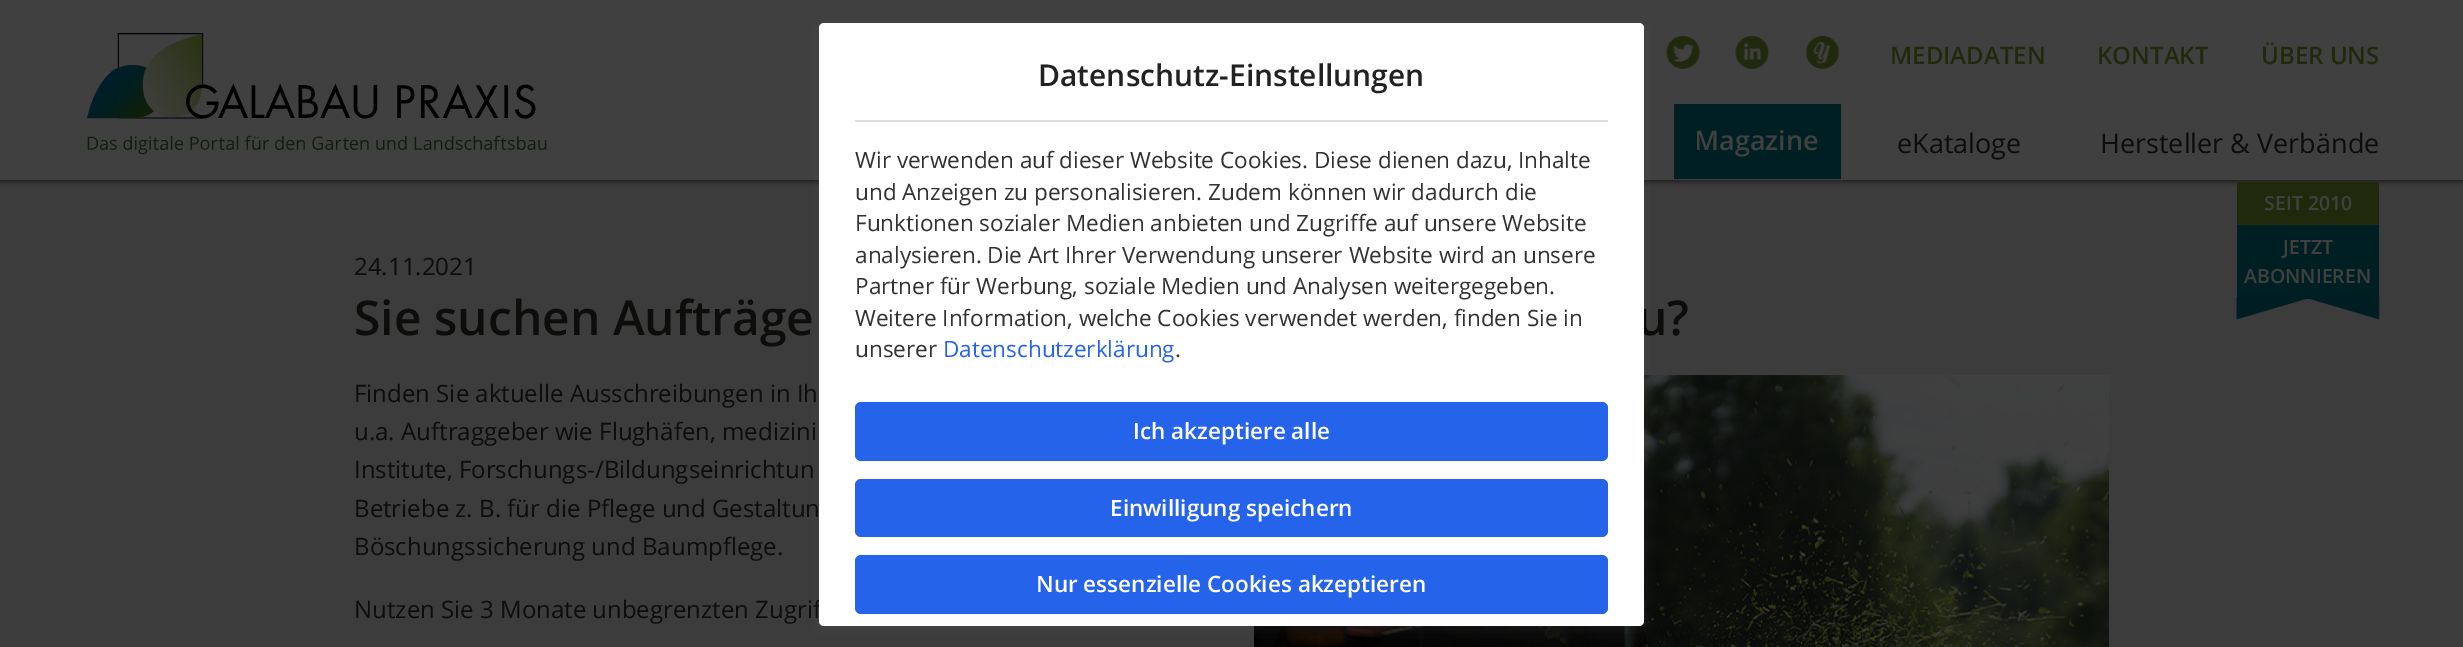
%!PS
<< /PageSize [2463 647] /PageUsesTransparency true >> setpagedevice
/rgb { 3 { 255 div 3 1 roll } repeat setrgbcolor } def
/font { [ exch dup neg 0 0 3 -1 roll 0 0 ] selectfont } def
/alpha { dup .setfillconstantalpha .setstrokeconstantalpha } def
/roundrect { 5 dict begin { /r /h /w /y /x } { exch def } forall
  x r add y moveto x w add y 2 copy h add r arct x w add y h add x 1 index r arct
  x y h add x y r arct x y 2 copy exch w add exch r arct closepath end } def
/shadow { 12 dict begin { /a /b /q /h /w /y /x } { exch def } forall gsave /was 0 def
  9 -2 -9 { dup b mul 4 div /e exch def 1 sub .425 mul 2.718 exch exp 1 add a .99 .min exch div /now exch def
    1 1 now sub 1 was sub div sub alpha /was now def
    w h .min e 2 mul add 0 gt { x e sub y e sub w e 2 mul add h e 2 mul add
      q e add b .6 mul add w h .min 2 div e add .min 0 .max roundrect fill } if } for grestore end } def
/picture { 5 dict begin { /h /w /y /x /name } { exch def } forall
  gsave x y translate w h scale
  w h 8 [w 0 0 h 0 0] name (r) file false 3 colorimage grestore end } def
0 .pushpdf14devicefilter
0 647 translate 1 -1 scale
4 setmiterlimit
60 60 60 rgb
0 0 2463 647 rectfill
0 0 0 rgb
0 179 2463 2 0 3 0.7 shadow
64 64 64 rgb
0 0 2463 180 rectfill
(img/1.rgb) 87 33 460 122 picture
(img/2.rgb) 1666 36 34 33 picture
(img/3.rgb) 1735 36 34 33 picture
(img/4.rgb) 1806 36 34 33 picture
[
  [1697 104 144 75 0 31 34]
  [2237 225 142 74 0 31 34]
  [2237 182 142 43 33 41 13]
] { aload pop rgb rectfill } forall
(img/5.rgb) 2236 297 144 23 picture
(img/6.rgb) 1254 375 855 272 picture
99 99 99 rgb
819 26 825 603 5 6 0.2 shadow
/OpenSans-SemiBold 24 font
33 41 13 rgb
[
  [(MEDIADATEN) 1890 64]
  [(KONTAKT) 2097 64]
  [(ÜBER UNS) 2261 64]
] { aload pop moveto show } forall
/OpenSans-SemiBold 27 font
64 64 64 rgb
1694 150 moveto (Magazine) show
0 31 34 rgb
1674 104 23 75 rectfill
/OpenSans-Regular 27 font
13 13 12 rgb
1897 153 moveto (eKataloge) show
2100 153 moveto (Hersteller & Verbände) show
/OpenSans-SemiBold 19.5 font
64 64 64 rgb
[
  [(SEIT 2010) 2264 210]
  [(JETZT) 2283 254]
  [(ABONNIEREN) 2244 283]
] { aload pop moveto show } forall
/OpenSans-Regular 24 font
13 13 12 rgb
354 275 moveto (24.11.2021) show
/OpenSans-SemiBold 48 font
354 335 moveto (Sie suchen Aufträge) show
1637 335 moveto (u?) show
/OpenSans-Regular 24 font
[
  [(Finden Sie aktuelle Ausschreibungen in Ih) 354 402]
  [(u.a. Auftraggeber wie Flughäfen, medizini) 354 440]
  [(Institute, Forschungs-/Bildungseinrichtun) 354 478]
  [(Betriebe z. B. für die Pflege und Gestaltun) 354 517]
  [(Böschungssicherung und Baumpflege.) 354 555]
  [(Nutzen Sie 3 Monate unbegrenzten Zugrif) 354 618]
] { aload pop moveto show } forall
255 255 255 rgb
819 23 825 603 5 roundrect fill
/OpenSans-SemiBold 30 font
34 34 34 rgb
1038 86 moveto (Datenschutz-Einstellungen) show
221 221 221 rgb
855 120 753 2 rectfill
/OpenSans-Regular 22.5 font
50 50 49 rgb
[
  [(Wir verwenden auf dieser Website Cookies. Diese dienen dazu, Inhalte) 855 168]
  [(und Anzeigen zu personalisieren. Zudem können wir dadurch die) 855 200]
  [(Funktionen sozialer Medien anbieten und Zugriffe auf unsere Website) 855 231]
  [(analysieren. Die Art Ihrer Verwendung unserer Website wird an unsere) 855 263]
  [(Partner für Werbung, soziale Medien und Analysen weitergegeben.) 855 294]
  [(Weitere Information, welche Cookies verwendet werden, finden Sie in) 855 326]
  [(unserer) 855 357]
] { aload pop moveto show } forall
37 99 235 rgb
943 357 moveto (Datenschutzerklärung) show
50 50 49 rgb
1175 357 moveto (.) show
37 99 235 rgb
855 402 753 59 6 roundrect fill
/OpenSans-SemiBold 22.5 font
255 255 255 rgb
1133 439 moveto (Ich akzeptiere alle) show
37 99 235 rgb
855 479 753 58 6 roundrect fill
255 255 255 rgb
1110 516 moveto (Einwilligung speichern) show
37 99 235 rgb
855 555 753 59 6 roundrect fill
255 255 255 rgb
1036 592 moveto (Nur essenzielle Cookies akzeptieren) show
.poppdf14devicefilter showpage
